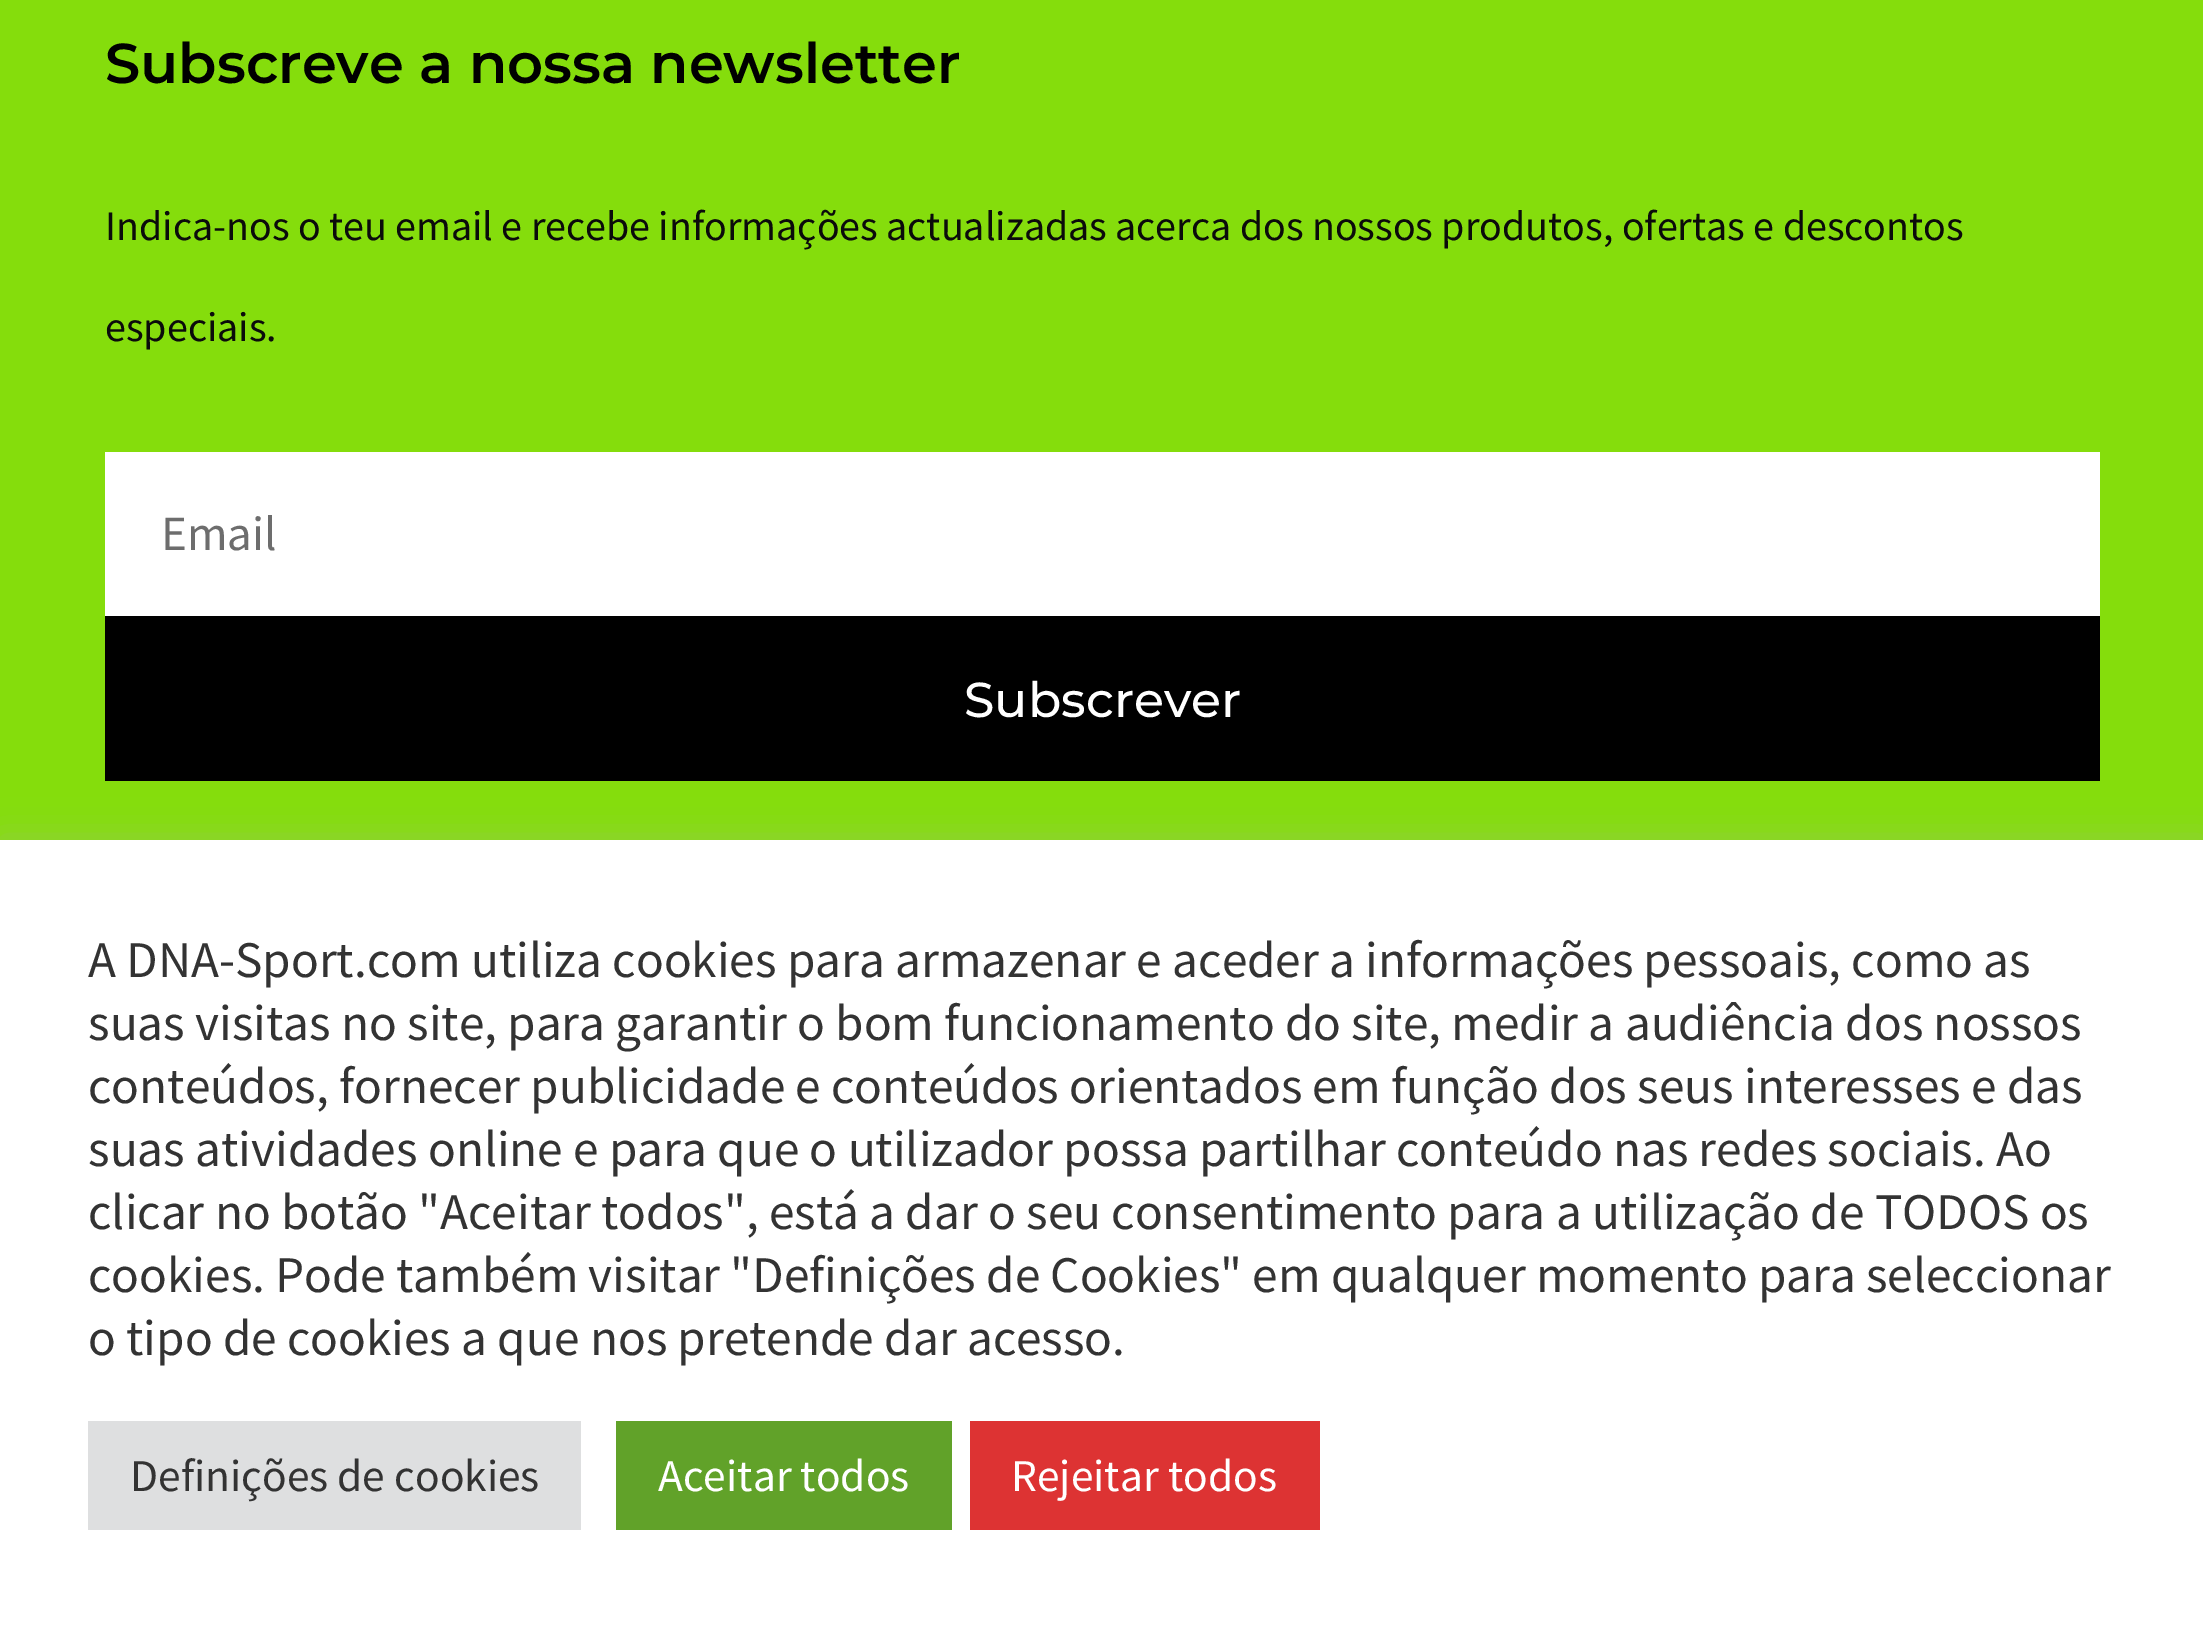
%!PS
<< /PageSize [2203 1632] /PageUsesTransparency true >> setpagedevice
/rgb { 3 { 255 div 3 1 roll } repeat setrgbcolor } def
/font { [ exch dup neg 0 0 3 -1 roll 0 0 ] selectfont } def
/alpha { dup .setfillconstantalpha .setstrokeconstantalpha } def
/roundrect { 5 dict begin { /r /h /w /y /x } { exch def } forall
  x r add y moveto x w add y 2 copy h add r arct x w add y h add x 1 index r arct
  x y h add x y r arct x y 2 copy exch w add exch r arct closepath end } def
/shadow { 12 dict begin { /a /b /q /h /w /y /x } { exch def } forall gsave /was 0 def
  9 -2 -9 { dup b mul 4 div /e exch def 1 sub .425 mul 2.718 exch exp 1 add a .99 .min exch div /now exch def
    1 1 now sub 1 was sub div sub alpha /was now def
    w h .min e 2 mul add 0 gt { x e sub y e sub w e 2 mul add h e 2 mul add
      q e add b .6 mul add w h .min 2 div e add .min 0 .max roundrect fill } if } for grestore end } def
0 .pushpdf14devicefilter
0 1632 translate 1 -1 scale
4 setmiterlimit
133 221 12 rgb
0 0 2203 1632 rectfill
255 255 255 rgb
105 452 1995 164 rectfill
0 0 0 rgb
105 616 1995 165 rectfill
172 171 171 rgb
0 837 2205 794 0 17.5 0.3 shadow
[
  [0 840 2203 792 255 255 255]
  [88 1421 493 109 222 223 224]
  [616 1421 336 109 97 162 41]
  [970 1421 350 109 221 51 51]
] { aload pop rgb rectfill } forall
/Montserrat-SemiBold 56 font
0 0 0 rgb
105 83 moveto (Subscreve a nossa newsletter) show
/SourceSansPro-Regular 42 font
11 11 11 rgb
105 240 moveto (Indica-nos o teu email e recebe informações actualizadas acerca dos nossos produtos, ofertas e descontos) show
105 341 moveto (especiais.) show
/SourceSansPro-Regular 49 font
109 109 109 rgb
161 550 moveto (Email) show
/Montserrat-Medium 49 font
255 255 255 rgb
964 717 moveto (Subscrever) show
/SourceSansPro-Regular 51.35 font
51 51 51 rgb
[
  [(A DNA-Sport.com utiliza cookies para armazenar e aceder a informações pessoais, como as) 88 977]
  [(suas visitas no site, para garantir o bom funcionamento do site, medir a audiência dos nossos) 88 1040]
  [(conteúdos, fornecer publicidade e conteúdos orientados em função dos seus interesses e das) 88 1103]
  [(suas atividades online e para que o utilizador possa partilhar conteúdo nas redes sociais. Ao) 88 1166]
  [(clicar no botão "Aceitar todos", está a dar o seu consentimento para a utilização de TODOS os) 88 1229]
] { aload pop moveto show } forall
88 1292 moveto -0.1 0 32 (cookies. Pode também visitar "Definições de Cookies" em qualquer momento para seleccionar) widthshow
88 1355 moveto (o tipo de cookies a que nos pretende dar acesso.) show
/SourceSansPro-Regular 45.5 font
130 1491 moveto (Definições de cookies) show
255 255 255 rgb
658 1491 moveto (Aceitar todos) show
1011 1491 moveto (Rejeitar todos) show
.poppdf14devicefilter showpage
